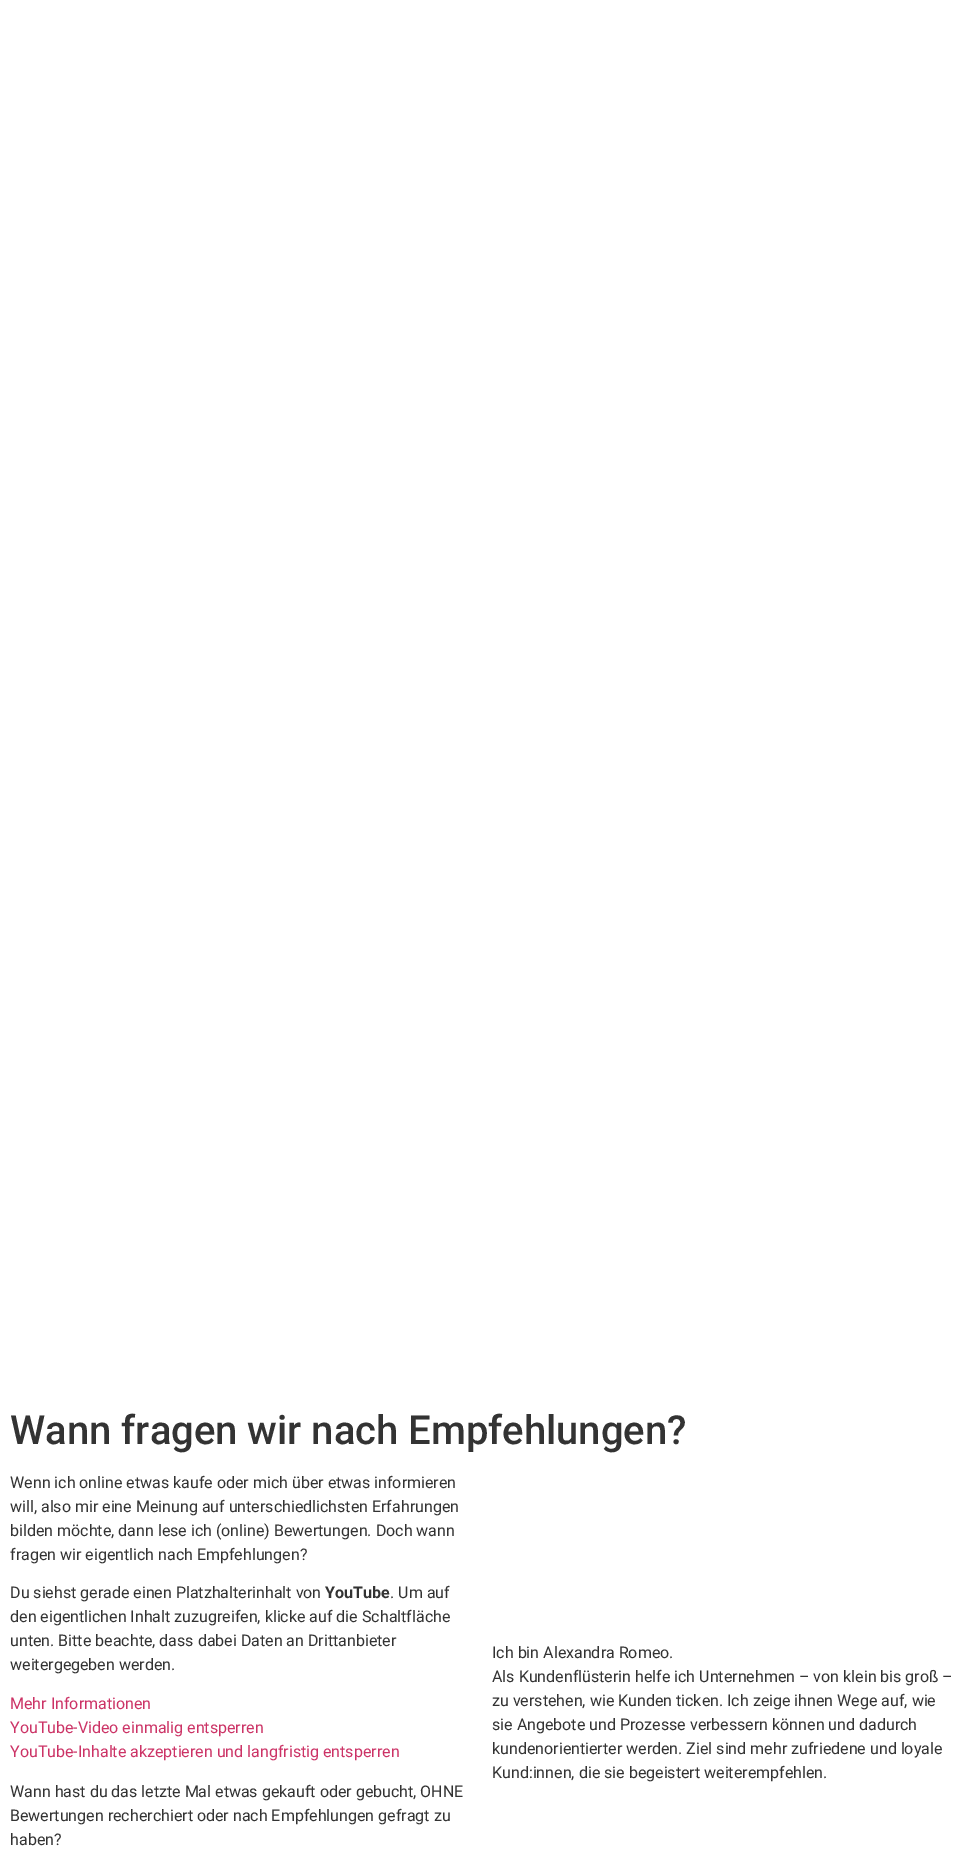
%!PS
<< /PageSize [964 1854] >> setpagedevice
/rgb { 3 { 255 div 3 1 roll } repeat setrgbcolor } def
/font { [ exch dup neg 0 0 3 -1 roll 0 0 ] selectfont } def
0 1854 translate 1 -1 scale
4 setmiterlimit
255 255 255 rgb
0 0 964 1854 rectfill
/Roboto-Medium 40 font
51 51 51 rgb
10 1444 moveto (Wann fragen wir nach Empfehlungen?) show
/Roboto-Regular 16 font
[
  [(Wenn ich online etwas kaufe oder mich über etwas informieren) 10 1488]
  [(will, also mir eine Meinung auf unterschiedlichsten Erfahrungen) 10 1512]
  [(bilden möchte, dann lese ich \(online\) Bewertungen. Doch wann) 10 1536]
  [(fragen wir eigentlich nach Empfehlungen?) 10 1560]
  [(Du siehst gerade einen Platzhalterinhalt von) 10 1598]
] { aload pop moveto show } forall
/Roboto-Bold 16 font
325 1598 moveto (YouTube) show
/Roboto-Regular 16 font
[
  [(. Um auf) 390 1598]
  [(den eigentlichen Inhalt zuzugreifen, klicke auf die Schaltfläche) 10 1622]
  [(unten. Bitte beachte, dass dabei Daten an Drittanbieter) 10 1646]
  [(weitergegeben werden.) 10 1670]
] { aload pop moveto show } forall
204 51 102 rgb
[
  [(Mehr Informationen) 10 1709]
  [(YouTube-Video einmalig entsperren) 10 1733]
  [(YouTube-Inhalte akzeptieren und langfristig entsperren) 10 1757]
] { aload pop moveto show } forall
51 51 51 rgb
[
  [(Wann hast du das letzte Mal etwas gekauft oder gebucht, OHNE) 10 1797]
  [(Bewertungen recherchiert oder nach Empfehlungen gefragt zu) 10 1821]
  [(haben?) 10 1845]
  [(Ich bin Alexandra Romeo.) 492 1658]
  [(Als Kundenflüsterin helfe ich Unternehmen – von klein bis groß –) 492 1682]
  [(zu verstehen, wie Kunden ticken. Ich zeige ihnen Wege auf, wie) 492 1706]
  [(sie Angebote und Prozesse verbessern können und dadurch) 492 1730]
  [(kundenorientierter werden. Ziel sind mehr zufriedene und loyale) 492 1754]
  [(Kund:innen, die sie begeistert weiterempfehlen.) 492 1778]
] { aload pop moveto show } forall
showpage
